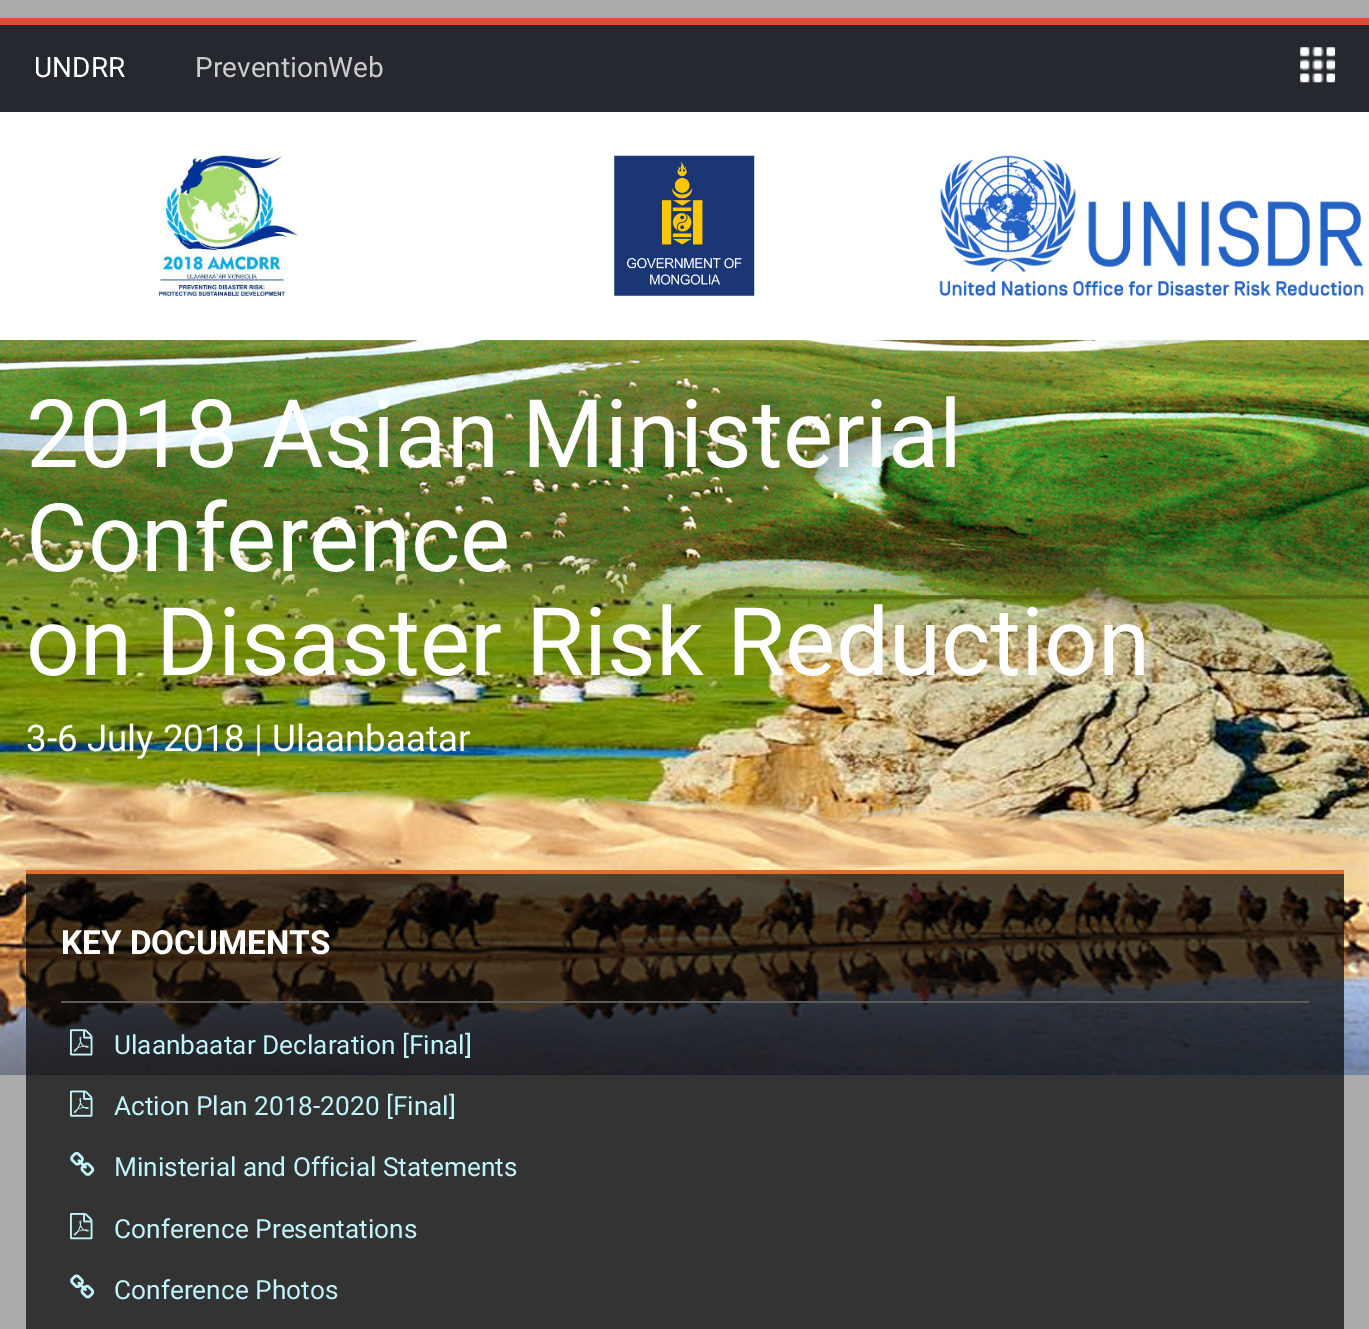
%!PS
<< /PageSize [1369 1329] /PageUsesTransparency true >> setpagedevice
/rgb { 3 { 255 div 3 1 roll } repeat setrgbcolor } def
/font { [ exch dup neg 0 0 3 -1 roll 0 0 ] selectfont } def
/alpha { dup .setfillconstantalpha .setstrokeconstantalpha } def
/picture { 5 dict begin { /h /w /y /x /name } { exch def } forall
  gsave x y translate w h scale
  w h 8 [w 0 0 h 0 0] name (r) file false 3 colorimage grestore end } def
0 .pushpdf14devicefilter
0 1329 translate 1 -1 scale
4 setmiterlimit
170 170 170 rgb
0 0 1369 1329 rectfill
231 73 52 rgb
0 18 1369 7 rectfill
37 41 47 rgb
0 25 1369 87 rectfill
(img/1.rgb) 1300 47 36 36 picture
255 255 255 rgb
0 112 1369 228 rectfill
(img/2.rgb) 159 155 139 141 picture
(img/3.rgb) 614 155 141 141 picture
(img/4.rgb) 939 155 425 141 picture
(img/5.rgb) 0 340 1369 735 picture
0.7 alpha
[
  [26 874 1318 455 0 0 0]
] { aload pop rgb rectfill } forall
1 alpha
[
  [26 870 1318 4 225 109 47]
  [61 1001 1248 2 90 90 90]
] { aload pop rgb rectfill } forall
(img/6.rgb) 70 1029 23 27 picture
(img/7.rgb) 70 1090 23 27 picture
(img/8.rgb) 70 1152 25 24 picture
(img/9.rgb) 70 1213 23 27 picture
(img/10.rgb) 70 1274 25 25 picture
/Roboto-Regular 28 font
255 255 255 rgb
34 77 moveto (UNDRR) show
204 204 204 rgb
195 77 moveto (PreventionWeb) show
/Roboto-Regular 94.5 font
255 255 255 rgb
[
  [(2018 Asian Ministerial) 26 467]
  [(Conference) 26 571]
  [(on Disaster Risk Reduction) 26 675]
] { aload pop moveto show } forall
/Roboto-Regular 36.75 font
26 751 moveto (3-6 July 2018 | Ulaanbaatar) show
/Roboto-Bold 33.25 font
61 954 moveto (KEY DOCUMENTS) show
/Roboto-Regular 26.25 font
193 245 251 rgb
[
  [(Ulaanbaatar Declaration [Final]) 114 1054]
  [(Action Plan 2018-2020 [Final]) 114 1115]
  [(Ministerial and Official Statements) 114 1176]
  [(Conference Presentations) 114 1238]
  [(Conference Photos) 114 1299]
] { aload pop moveto show } forall
.poppdf14devicefilter showpage
